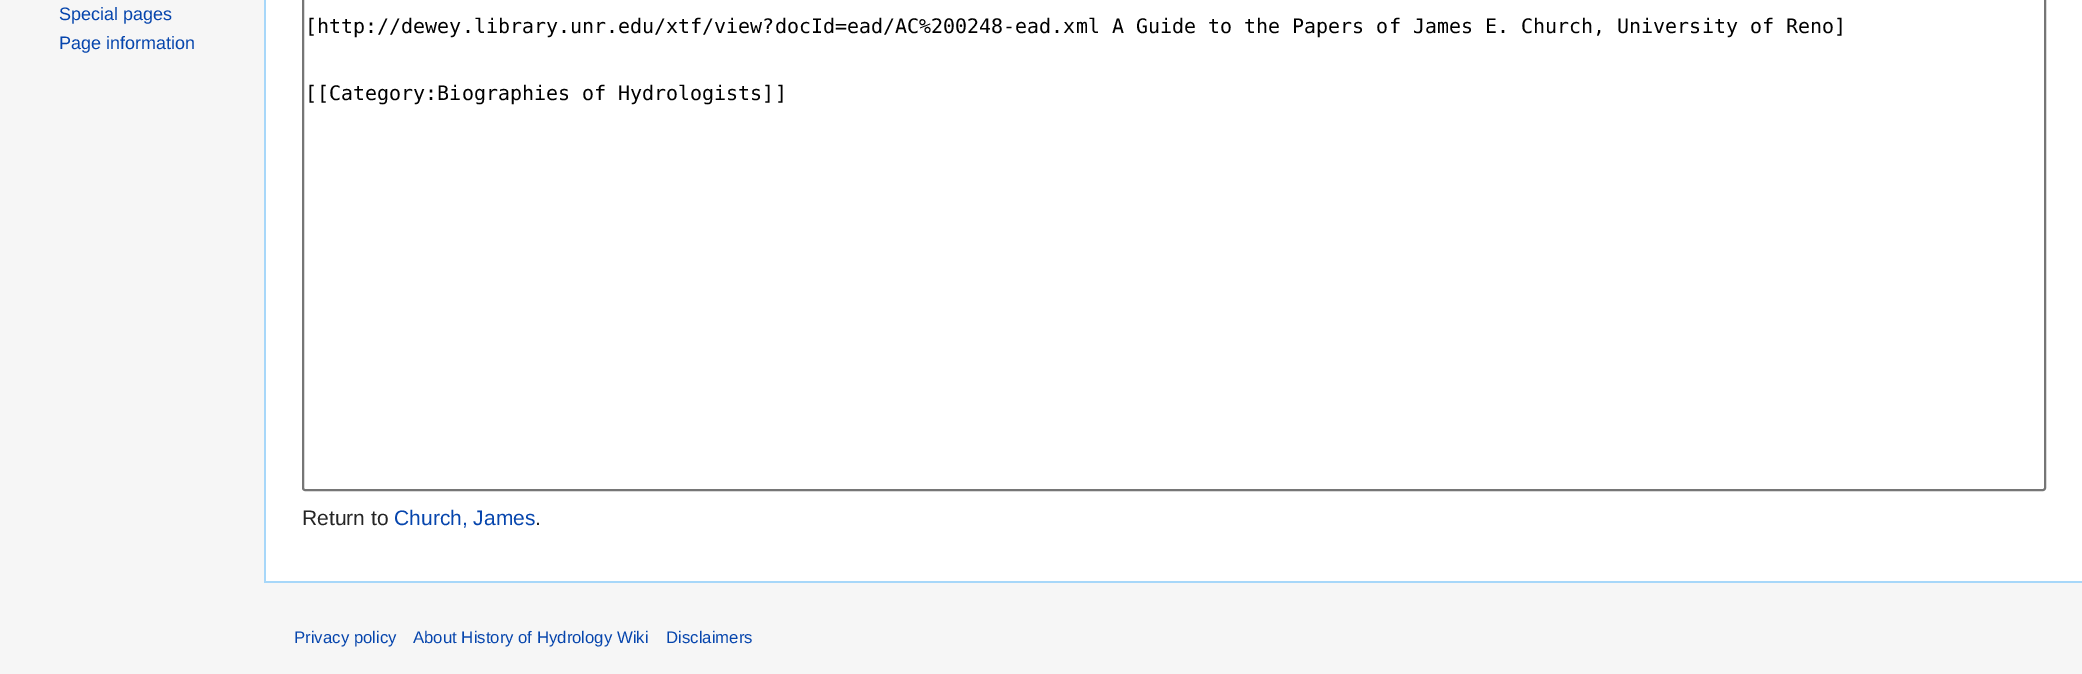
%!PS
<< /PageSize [2082 674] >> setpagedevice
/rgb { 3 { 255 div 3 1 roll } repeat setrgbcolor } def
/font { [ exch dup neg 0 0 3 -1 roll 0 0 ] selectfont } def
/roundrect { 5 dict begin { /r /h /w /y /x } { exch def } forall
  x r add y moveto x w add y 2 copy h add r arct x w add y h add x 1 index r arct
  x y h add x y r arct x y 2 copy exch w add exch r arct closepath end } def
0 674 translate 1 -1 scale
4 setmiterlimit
246 246 246 rgb
0 0 2082 674 rectfill
[
  [266 0 1816 581 255 255 255]
  [264 581 1818 2 167 215 249]
  [264 0 2 582 167 215 249]
] { aload pop rgb rectfill } forall
118 118 118 rgb
2 setlinewidth
303 -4 1742 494 2 roundrect stroke
/LiberationSans-Regular 18 font
6 69 173 rgb
59 20 moveto (Special pages) show
59 49 moveto (Page information) show
/DejaVuSansMono-Regular 20 font
0 0 0 rgb
305 33 moveto ([http://dewey.library.unr.edu/xtf/view?docId=ead/AC%200248-ead.xml A Guide to the Papers of James E. Church, University of Reno]) show
305 100 moveto ([[Category:Biographies of Hydrologists]]) show
/LiberationSans-Regular 21 font
37 37 37 rgb
302 525 moveto (Return to) show
6 69 173 rgb
394 525 moveto (Church, James) show
37 37 37 rgb
535 525 moveto (.) show
/LiberationSans-Regular 16.75 font
6 69 173 rgb
[
  [(Privacy policy) 294 643]
  [(About History of Hydrology Wiki) 413 643]
  [(Disclaimers) 666 643]
] { aload pop moveto show } forall
showpage
